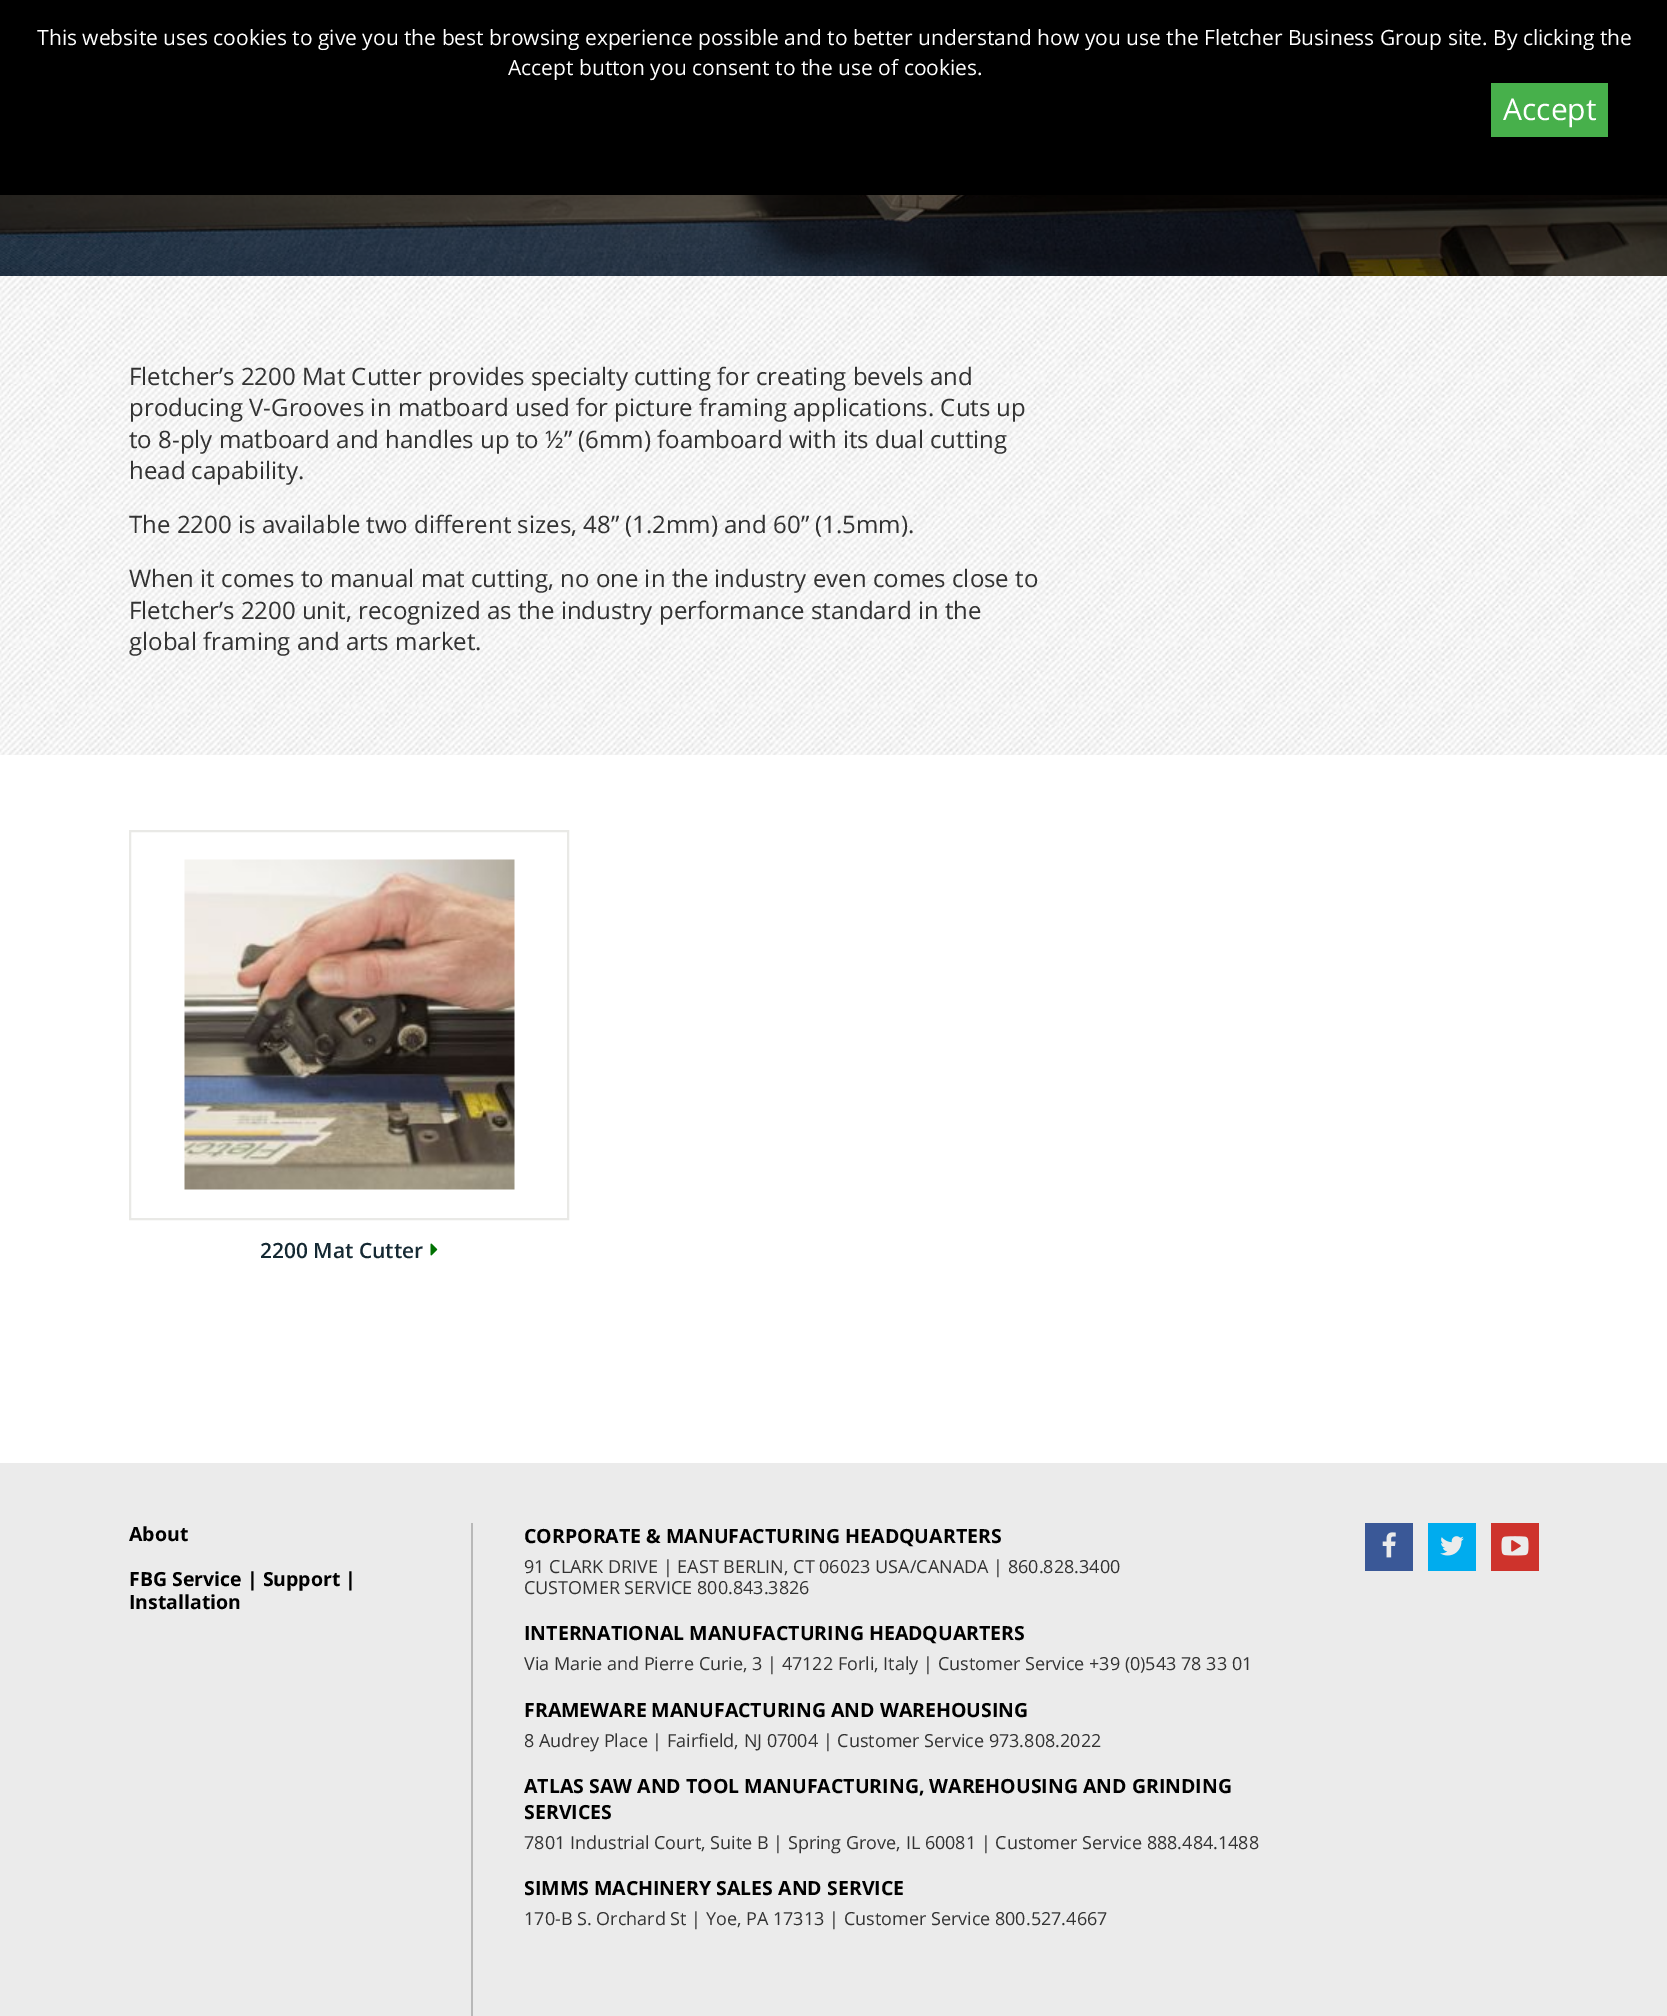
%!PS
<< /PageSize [1667 2016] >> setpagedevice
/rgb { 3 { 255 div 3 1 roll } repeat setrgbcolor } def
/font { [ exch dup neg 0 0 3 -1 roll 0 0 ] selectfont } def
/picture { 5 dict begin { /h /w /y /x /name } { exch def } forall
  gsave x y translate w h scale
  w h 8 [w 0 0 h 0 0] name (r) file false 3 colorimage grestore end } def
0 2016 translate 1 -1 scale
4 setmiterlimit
255 255 255 rgb
0 0 1667 2016 rectfill
(img/1.rgb) 0 276 1667 479 picture
0 0 0 rgb
0 0 1667 195 rectfill
71 176 75 rgb
1491 83 117 54 rectfill
(img/2.rgb) 0 195 1667 81 picture
233 233 230 rgb
2 setlinewidth
130 831 438 388 rectstroke
(img/3.rgb) 184 859 331 331 picture
(img/4.rgb) 430 1243 8 13 picture
[
  [0 1463 1667 553 235 235 235]
  [471 1523 2 493 184 184 184]
  [1365 1523 48 48 58 88 151]
] { aload pop rgb rectfill } forall
(img/5.rgb) 1382 1532 14 26 picture
0 172 238 rgb
1428 1523 48 48 rectfill
(img/6.rgb) 1440 1536 24 20 picture
206 51 44 rgb
1491 1523 48 48 rectfill
(img/7.rgb) 1501 1536 28 20 picture
/OpenSans-Regular 21 font
255 255 255 rgb
37 45 moveto (This website uses cookies to give you the best browsing experience possible and to better understand how you use the Fletcher Business Group site. By clicking the) show
508 75 moveto (Accept button you consent to the use of cookies.) show
/OpenSans-Regular 30 font
1503 120 moveto (Accept) show
/OpenSans-Regular 24 font
51 51 51 rgb
[
  [(Fletcher’s 2200 Mat Cutter provides specialty cutting for creating bevels and) 129 385]
  [(producing V-Grooves in matboard used for picture framing applications. Cuts up) 129 416]
  [(to 8-ply matboard and handles up to ½” \(6mm\) foamboard with its dual cutting) 129 448]
  [(head capability.) 129 479]
  [(The 2200 is available two different sizes, 48” \(1.2mm\) and 60” \(1.5mm\).) 129 533]
  [(When it comes to manual mat cutting, no one in the industry even comes close to) 129 587]
  [(Fletcher’s 2200 unit, recognized as the industry performance standard in the) 129 619]
  [(global framing and arts market.) 129 650]
] { aload pop moveto show } forall
/OpenSans-SemiBold 21 font
21 41 51 rgb
260 1258 moveto (2200 Mat Cutter) show
/OpenSans-Bold 19.5 font
0 0 0 rgb
[
  [(About) 129 1541]
  [(FBG Service | Support |) 129 1586]
  [(Installation) 129 1609]
  [(CORPORATE & MANUFACTURING HEADQUARTERS) 524 1543]
] { aload pop moveto show } forall
/OpenSans-Regular 18 font
51 51 51 rgb
524 1573 moveto (91 CLARK DRIVE | EAST BERLIN, CT 06023 USA/CANADA | 860.828.3400) show
524 1594 moveto (CUSTOMER SERVICE 800.843.3826) show
/OpenSans-Bold 19.5 font
0 0 0 rgb
524 1640 moveto (INTERNATIONAL MANUFACTURING HEADQUARTERS) show
/OpenSans-Regular 18 font
51 51 51 rgb
524 1670 moveto (Via Marie and Pierre Curie, 3 | 47122 Forli, Italy | Customer Service +39 \(0\)543 78 33 01) show
/OpenSans-Bold 19.5 font
0 0 0 rgb
524 1717 moveto (FRAMEWARE MANUFACTURING AND WAREHOUSING) show
/OpenSans-Regular 18 font
51 51 51 rgb
524 1747 moveto (8 Audrey Place | Fairfield, NJ 07004 | Customer Service 973.808.2022) show
/OpenSans-Bold 19.5 font
0 0 0 rgb
524 1793 moveto (ATLAS SAW AND TOOL MANUFACTURING, WAREHOUSING AND GRINDING) show
524 1819 moveto (SERVICES) show
/OpenSans-Regular 18 font
51 51 51 rgb
524 1849 moveto (7801 Industrial Court, Suite B | Spring Grove, IL 60081 | Customer Service 888.484.1488) show
/OpenSans-Bold 19.5 font
0 0 0 rgb
524 1895 moveto (SIMMS MACHINERY SALES AND SERVICE) show
/OpenSans-Regular 18 font
51 51 51 rgb
524 1925 moveto (170-B S. Orchard St | Yoe, PA 17313 | Customer Service 800.527.4667) show
showpage
